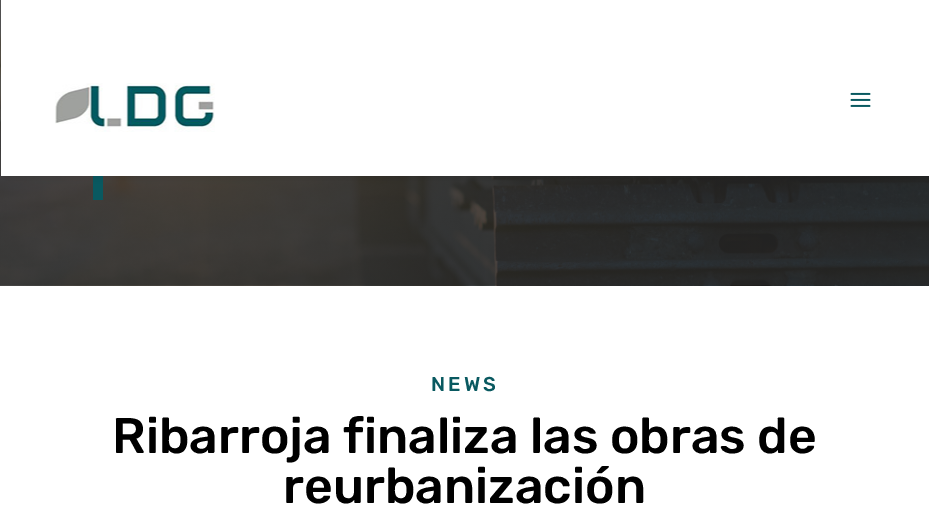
%!PS
<< /PageSize [929 520] /PageUsesTransparency true >> setpagedevice
/rgb { 3 { 255 div 3 1 roll } repeat setrgbcolor } def
/font { [ exch dup neg 0 0 3 -1 roll 0 0 ] selectfont } def
/alpha { dup .setfillconstantalpha .setstrokeconstantalpha } def
/roundrect { 5 dict begin { /r /h /w /y /x } { exch def } forall
  x r add y moveto x w add y 2 copy h add r arct x w add y h add x 1 index r arct
  x y h add x y r arct x y 2 copy exch w add exch r arct closepath end } def
/shadow { 12 dict begin { /a /b /q /h /w /y /x } { exch def } forall gsave /was 0 def
  9 -2 -9 { dup b mul 4 div /e exch def 1 sub .425 mul 2.718 exch exp 1 add a .99 .min exch div /now exch def
    1 1 now sub 1 was sub div sub alpha /was now def
    w h .min e 2 mul add 0 gt { x e sub y e sub w e 2 mul add h e 2 mul add
      q e add b .6 mul add w h .min 2 div e add .min 0 .max roundrect fill } if } for grestore end } def
/picture { 5 dict begin { /h /w /y /x /name } { exch def } forall
  gsave x y translate w h scale
  w h 8 [w 0 0 h 0 0] name (r) file false 3 colorimage grestore end } def
0 .pushpdf14devicefilter
0 520 translate 1 -1 scale
4 setmiterlimit
255 255 255 rgb
0 0 929 520 rectfill
(img/3.rgb) 0 0 929 286 picture
9 89 96 rgb
93 176 10 24 rectfill
0 0 0 rgb
7 9 917 164 0 5 0.3 shadow
255 255 255 rgb
1 0 928 176 rectfill
(img/1.rgb) 55 83 160 49 picture
(img/2.rgb) 850 92 21 15 picture
/Rubik-Light 20 font
9 89 96 rgb
431 391 moveto 3 0 (NEWS) ashow
/Rubik-Light 50 font
0 0 0 rgb
112 453 moveto (Ribarroja finaliza las obras de) show
283 503 moveto (reurbanización) show
.poppdf14devicefilter showpage
